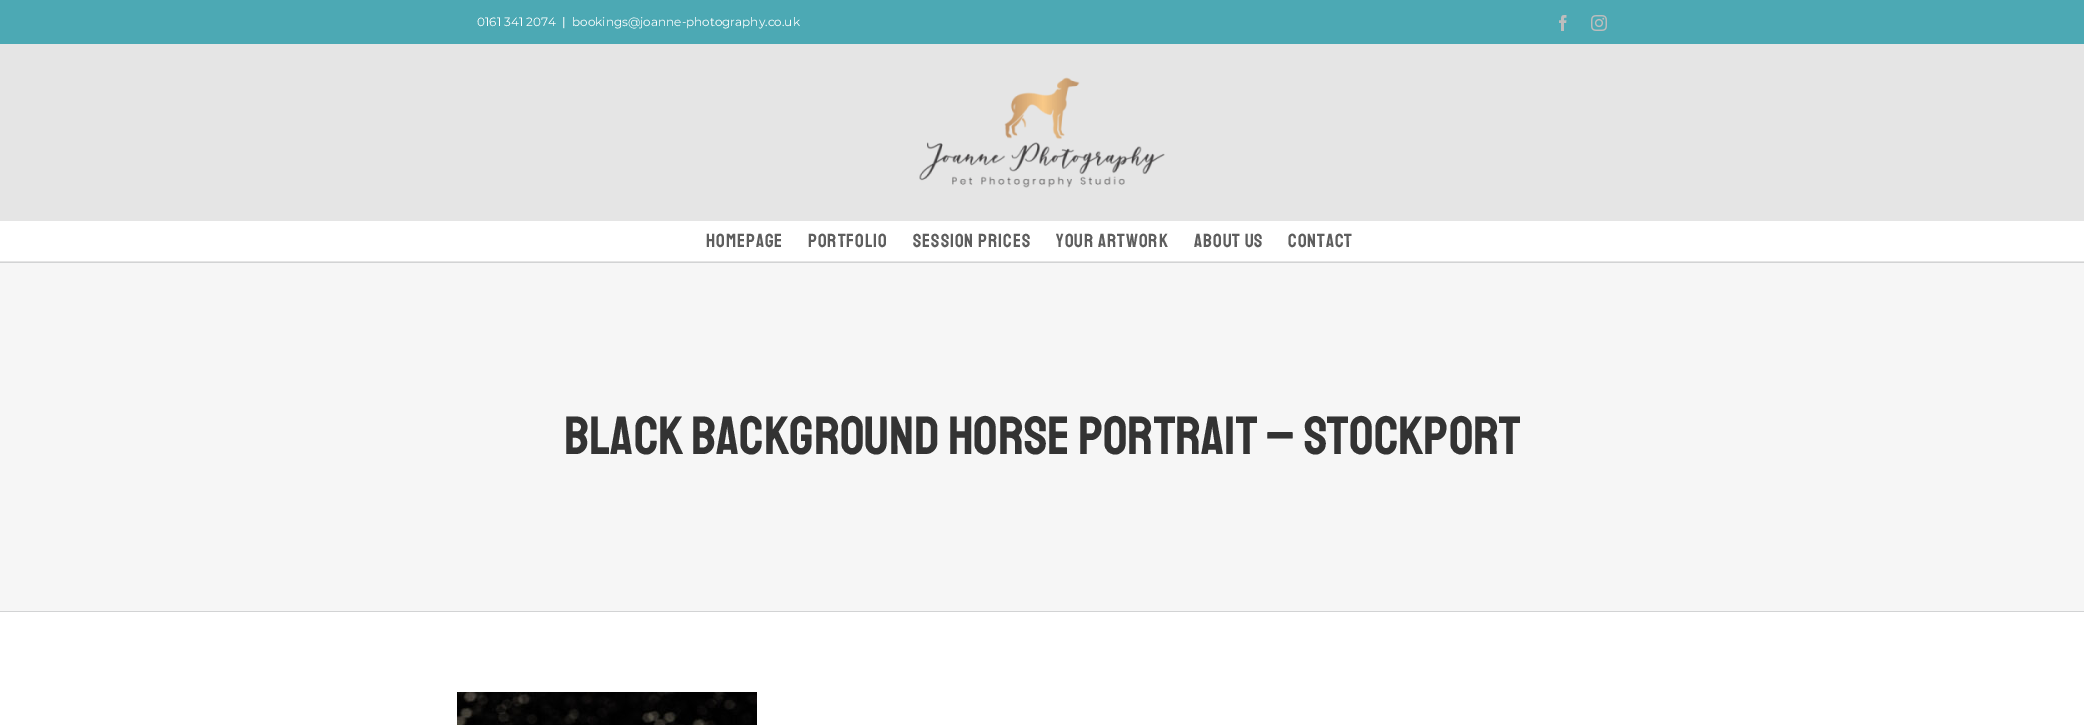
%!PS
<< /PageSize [2084 725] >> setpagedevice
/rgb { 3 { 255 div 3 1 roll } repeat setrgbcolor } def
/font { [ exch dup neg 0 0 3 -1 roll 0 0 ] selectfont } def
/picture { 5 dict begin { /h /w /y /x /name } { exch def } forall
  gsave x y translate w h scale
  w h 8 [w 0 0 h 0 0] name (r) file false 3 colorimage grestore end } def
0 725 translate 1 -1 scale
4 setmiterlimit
255 255 255 rgb
0 0 2084 725 rectfill
76 169 180 rgb
0 0 2084 44 rectfill
229 229 229 rgb
0 44 2084 177 rectfill
(img/1.rgb) 1559 15 8 16 picture
(img/2.rgb) 1591 15 16 16 picture
(img/3.rgb) 919 77 246 111 picture
[
  [0 261 2084 1 229 229 229]
  [0 263 2084 348 246 246 246]
  [0 262 2084 1 210 211 212]
  [0 611 2084 1 210 211 212]
] { aload pop rgb rectfill } forall
(img/4.rgb) 457 692 300 33 picture
/Montserrat-Regular 12 font
255 255 255 rgb
[
  [(0161 341 2074) 477 26]
  [(|) 562 26]
  [(bookings@joanne-photography.co.uk) 572 26]
] { aload pop moveto show } forall
/Staatliches-Regular 19 font
94 94 94 rgb
706 247 moveto 1 0 (Homepage) ashow
808 247 moveto 1 0 (Portfolio) ashow
913 247 moveto 1 0 (Session Prices) ashow
1056 247 moveto 1 0 (Your Artwork) ashow
1194 247 moveto 1 0 (About Us) ashow
1288 247 moveto 1 0 (Contact) ashow
/Staatliches-Regular 54 font
51 51 51 rgb
564 454 moveto (Black Background Horse Portrait – Stockport) show
showpage
